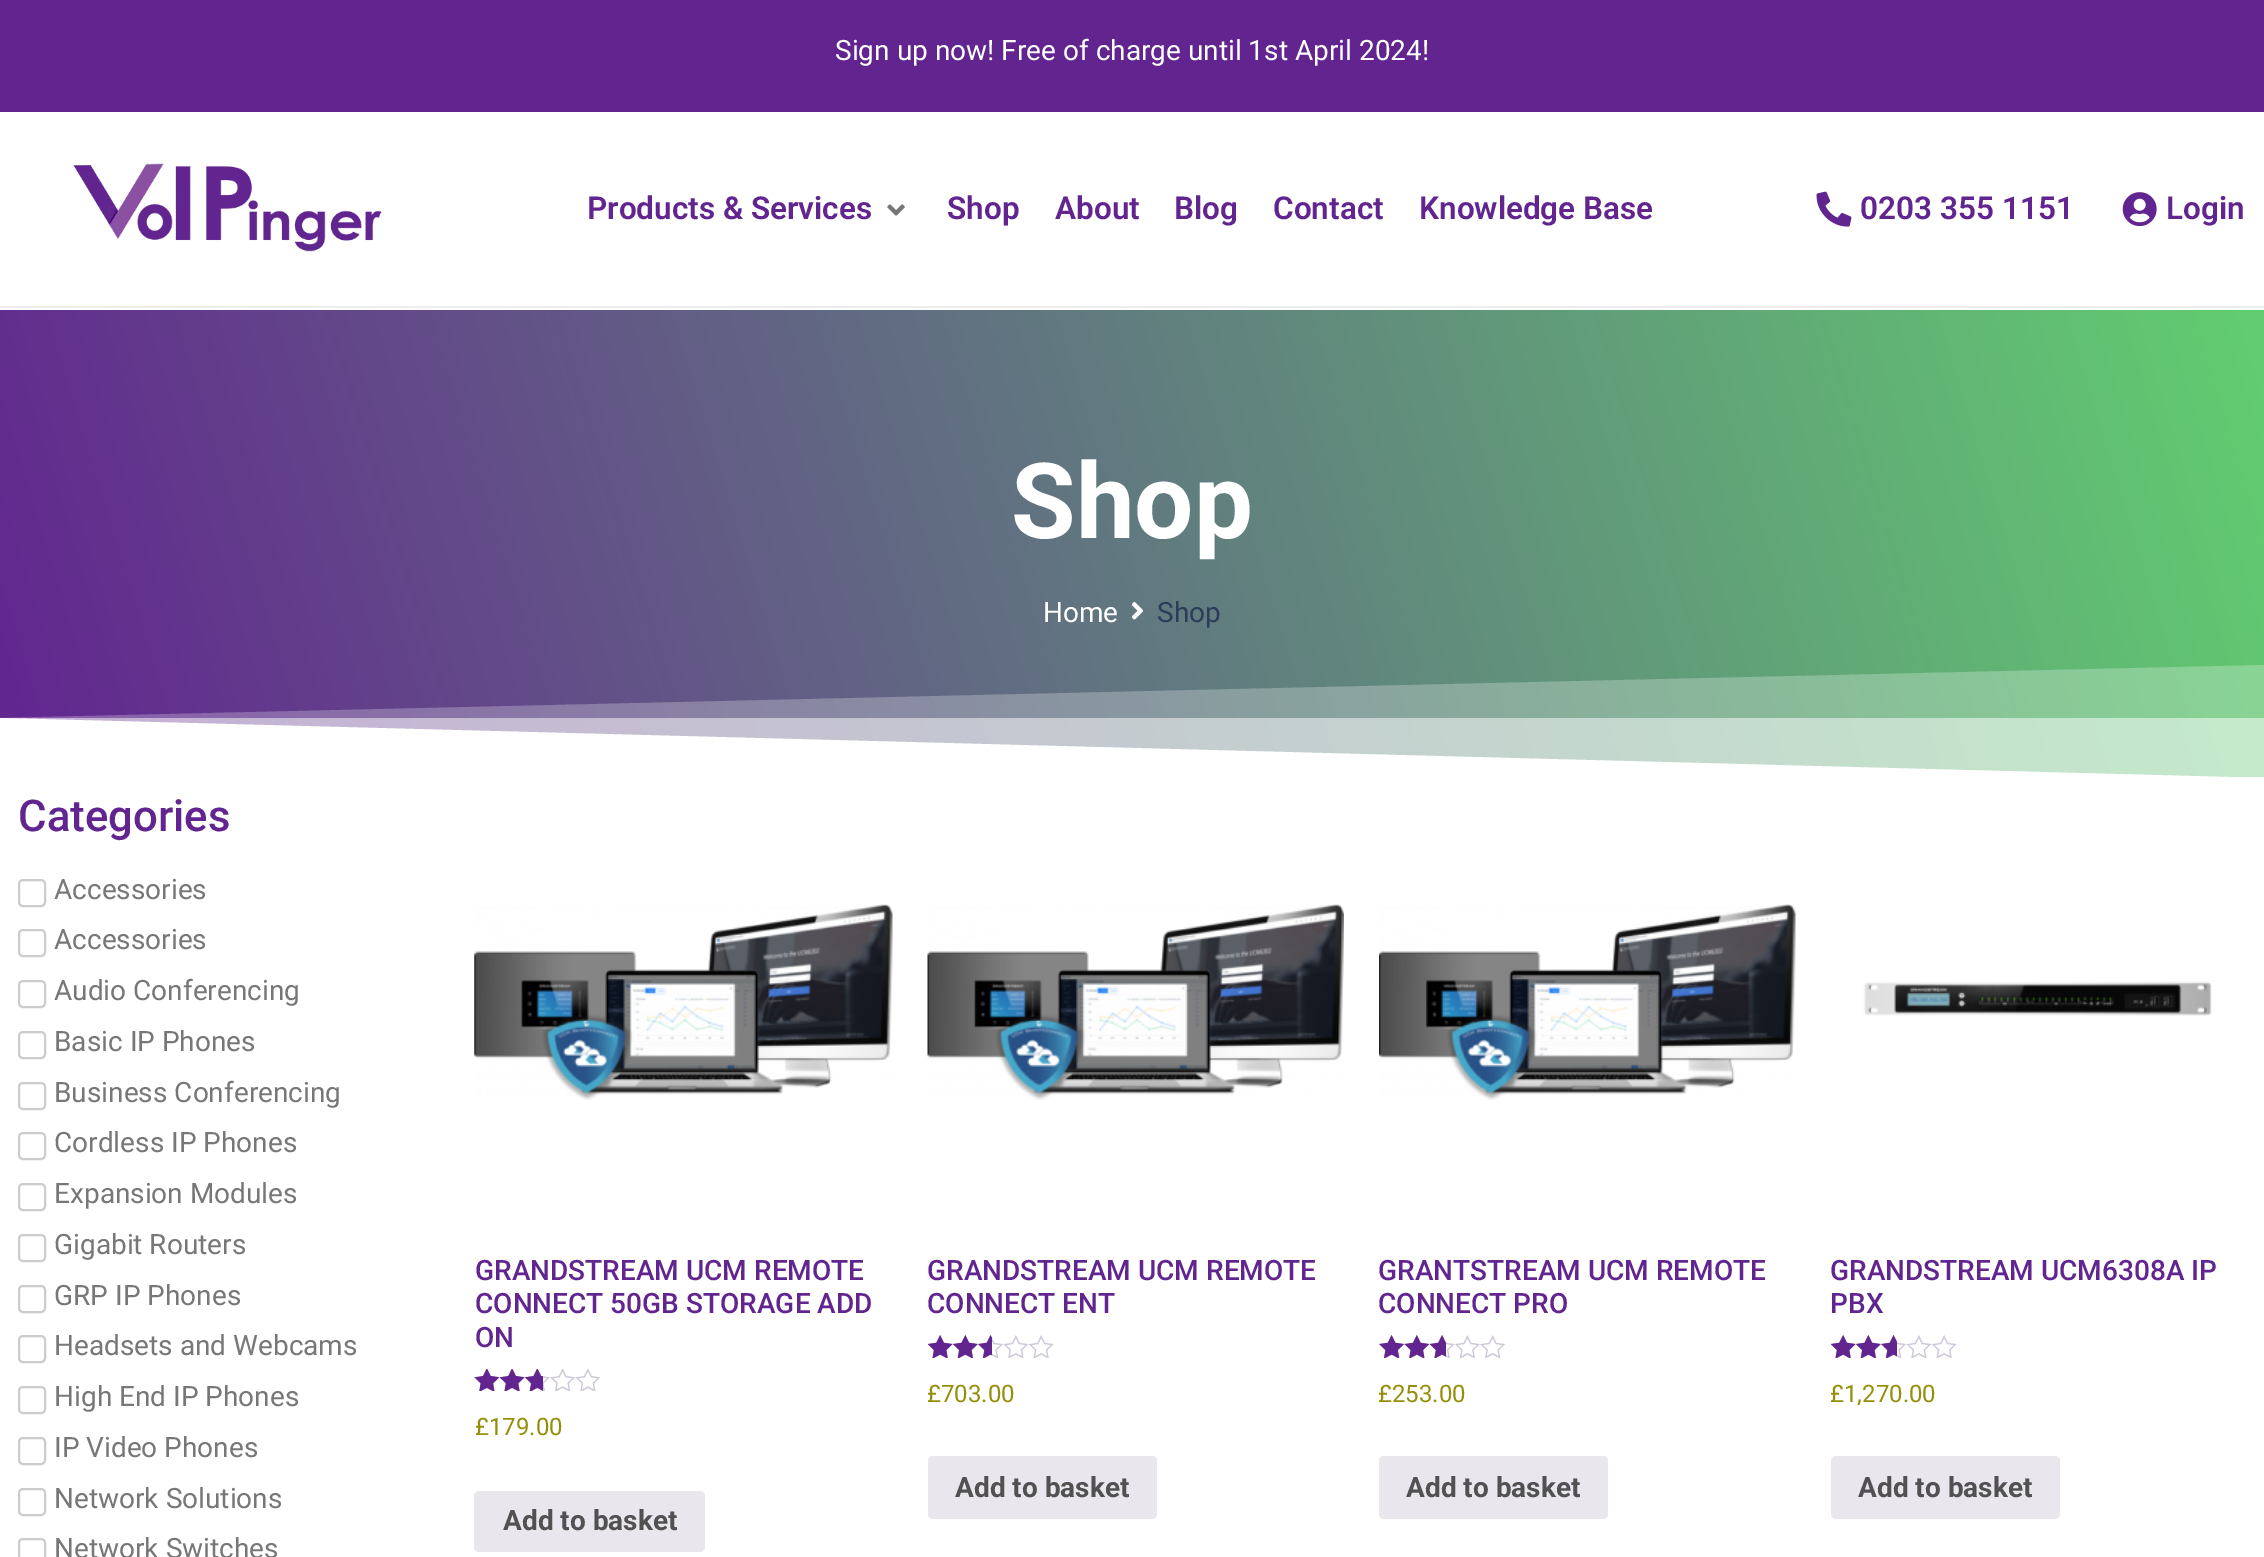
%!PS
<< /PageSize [2264 1557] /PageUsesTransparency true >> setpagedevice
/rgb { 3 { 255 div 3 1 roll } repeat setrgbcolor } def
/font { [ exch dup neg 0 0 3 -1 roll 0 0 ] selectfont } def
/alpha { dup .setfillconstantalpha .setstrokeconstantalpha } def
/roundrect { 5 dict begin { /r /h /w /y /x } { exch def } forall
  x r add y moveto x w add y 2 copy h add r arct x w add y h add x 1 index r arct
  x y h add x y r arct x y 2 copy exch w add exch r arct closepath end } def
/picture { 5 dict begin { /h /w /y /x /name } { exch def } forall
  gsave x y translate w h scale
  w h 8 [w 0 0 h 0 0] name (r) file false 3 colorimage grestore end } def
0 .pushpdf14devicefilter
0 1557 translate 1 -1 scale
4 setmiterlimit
255 255 255 rgb
0 0 2264 1557 rectfill
98 37 144 rgb
0 0 2264 112 rectfill
237 237 237 rgb
0 306 2264 2 rectfill
(img/1.rgb) 73 163 309 89 picture
(img/2.rgb) 887 204 18 12 picture
(img/3.rgb) 1816 191 36 36 picture
(img/4.rgb) 2122 192 35 35 picture
gsave 0 310 moveto 2264 310 lineto 2264 718 lineto 0 718 lineto closepath clip newpath
<< /ShadingType 2 /ColorSpace /DeviceRGB /Coords [2233 207 31 880] /Extend [true true] /Function << /FunctionType 2 /Domain [0 1] /C0 [0.38 0.808 0.439] /C1 [0.384 0.145 0.565] /N 1 >> >> shfill grestore
gsave 1 718 moveto 2264 718 lineto 2264 777 lineto 1 777 lineto closepath clip newpath
<< /ShadingType 2 /ColorSpace /DeviceRGB /Coords [2233 207 31 880] /Extend [true true] /Function << /FunctionType 2 /Domain [0 1] /C0 [0.69 0.906 0.722] /C1 [0.694 0.573 0.784] /N 1 >> >> shfill grestore
(img/5.rgb) 1131 602 13 18 picture
255 255 255 rgb
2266 778 moveto -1 778 lineto -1 718 lineto closepath fill
0.25 alpha
-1 778 moveto 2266 778 lineto 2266 665 lineto -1 718 lineto closepath fill
1 alpha
204 204 204 rgb
2 setlinewidth
19 880 26 26 4 roundrect stroke
19 930 26 26 4 roundrect stroke
19 981 26 26 4 roundrect stroke
19 1032 26 26 4 roundrect stroke
19 1083 26 26 4 roundrect stroke
19 1133 26 26 4 roundrect stroke
19 1184 26 26 4 roundrect stroke
19 1235 26 26 4 roundrect stroke
19 1286 26 26 4 roundrect stroke
19 1336 26 26 4 roundrect stroke
19 1387 26 26 4 roundrect stroke
19 1438 26 26 4 roundrect stroke
19 1489 26 26 4 roundrect stroke
19 1539 26 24 4 roundrect stroke
(img/6.rgb) 474 904 419 196 picture
(img/7.rgb) 474 1369 127 22 picture
(img/8.rgb) 474 1369 69 22 picture
233 230 237 rgb
474 1491 231 61 5 roundrect fill
(img/9.rgb) 927 904 417 196 picture
(img/10.rgb) 928 1335 126 23 picture
(img/11.rgb) 928 1335 64 23 picture
928 1456 229 63 5 roundrect fill
(img/12.rgb) 1379 904 417 196 picture
(img/13.rgb) 1379 1335 126 23 picture
(img/14.rgb) 1379 1335 67 23 picture
1379 1456 229 63 5 roundrect fill
(img/15.rgb) 1863 981 349 35 picture
(img/10.rgb) 1831 1335 126 23 picture
(img/16.rgb) 1831 1335 66 23 picture
1831 1456 229 63 5 roundrect fill
/Roboto-Regular 28 font
255 255 255 rgb
835 60 moveto (Sign up now! Free of charge until 1st April 2024!) show
/Roboto-SemiBold 31.5 font
98 37 144 rgb
[
  [(Products & Services) 587 219]
  [(Shop) 947 219]
  [(About) 1055 219]
  [(Blog) 1174 219]
  [(Contact) 1273 219]
  [(Knowledge Base) 1419 219]
  [(0203 355 1151) 1860 219]
  [(Login) 2166 219]
] { aload pop moveto show } forall
/Roboto-Bold 105 font
255 255 255 rgb
1011 538 moveto (Shop) show
/Roboto-Regular 28 font
1043 622 moveto (Home) show
45 60 88 rgb
1157 622 moveto (Shop) show
/Roboto-Medium 43.75 font
98 37 144 rgb
18 831 moveto (Categories) show
/Roboto-Regular 28 font
119 119 119 rgb
[
  [(Accessories) 54 899]
  [(Accessories) 54 949]
  [(Audio Conferencing) 54 1000]
  [(Basic IP Phones) 54 1051]
  [(Business Conferencing) 54 1102]
  [(Cordless IP Phones) 54 1152]
  [(Expansion Modules) 54 1203]
  [(Gigabit Routers) 54 1254]
  [(GRP IP Phones) 54 1305]
  [(Headsets and Webcams) 54 1355]
  [(High End IP Phones) 54 1406]
  [(IP Video Phones) 54 1457]
  [(Network Solutions) 54 1508]
  [(Network Switches) 54 1558]
] { aload pop moveto show } forall
/Roboto-Medium 28 font
98 37 144 rgb
[
  [(GRANDSTREAM UCM REMOTE) 475 1280]
  [(CONNECT 50GB STORAGE ADD) 475 1313]
  [(ON) 475 1347]
] { aload pop moveto show } forall
/Roboto-Regular 24 font
149 142 9 rgb
475 1435 moveto (£179.00) show
/Roboto-Bold 28 font
81 81 81 rgb
503 1530 moveto (Add to basket) show
/Roboto-Medium 28 font
98 37 144 rgb
927 1280 moveto (GRANDSTREAM UCM REMOTE) show
927 1313 moveto (CONNECT ENT) show
/Roboto-Regular 24 font
149 142 9 rgb
927 1402 moveto (£703.00) show
/Roboto-Bold 28 font
81 81 81 rgb
955 1497 moveto (Add to basket) show
/Roboto-Medium 28 font
98 37 144 rgb
1378 1280 moveto (GRANTSTREAM UCM REMOTE) show
1378 1313 moveto (CONNECT PRO) show
/Roboto-Regular 24 font
149 142 9 rgb
1378 1402 moveto (£253.00) show
/Roboto-Bold 28 font
81 81 81 rgb
1406 1497 moveto (Add to basket) show
/Roboto-Medium 28 font
98 37 144 rgb
1830 1280 moveto (GRANDSTREAM UCM6308A IP) show
1830 1313 moveto (PBX) show
/Roboto-Regular 24 font
149 142 9 rgb
1830 1402 moveto (£1,270.00) show
/Roboto-Bold 28 font
81 81 81 rgb
1858 1497 moveto (Add to basket) show
.poppdf14devicefilter showpage
